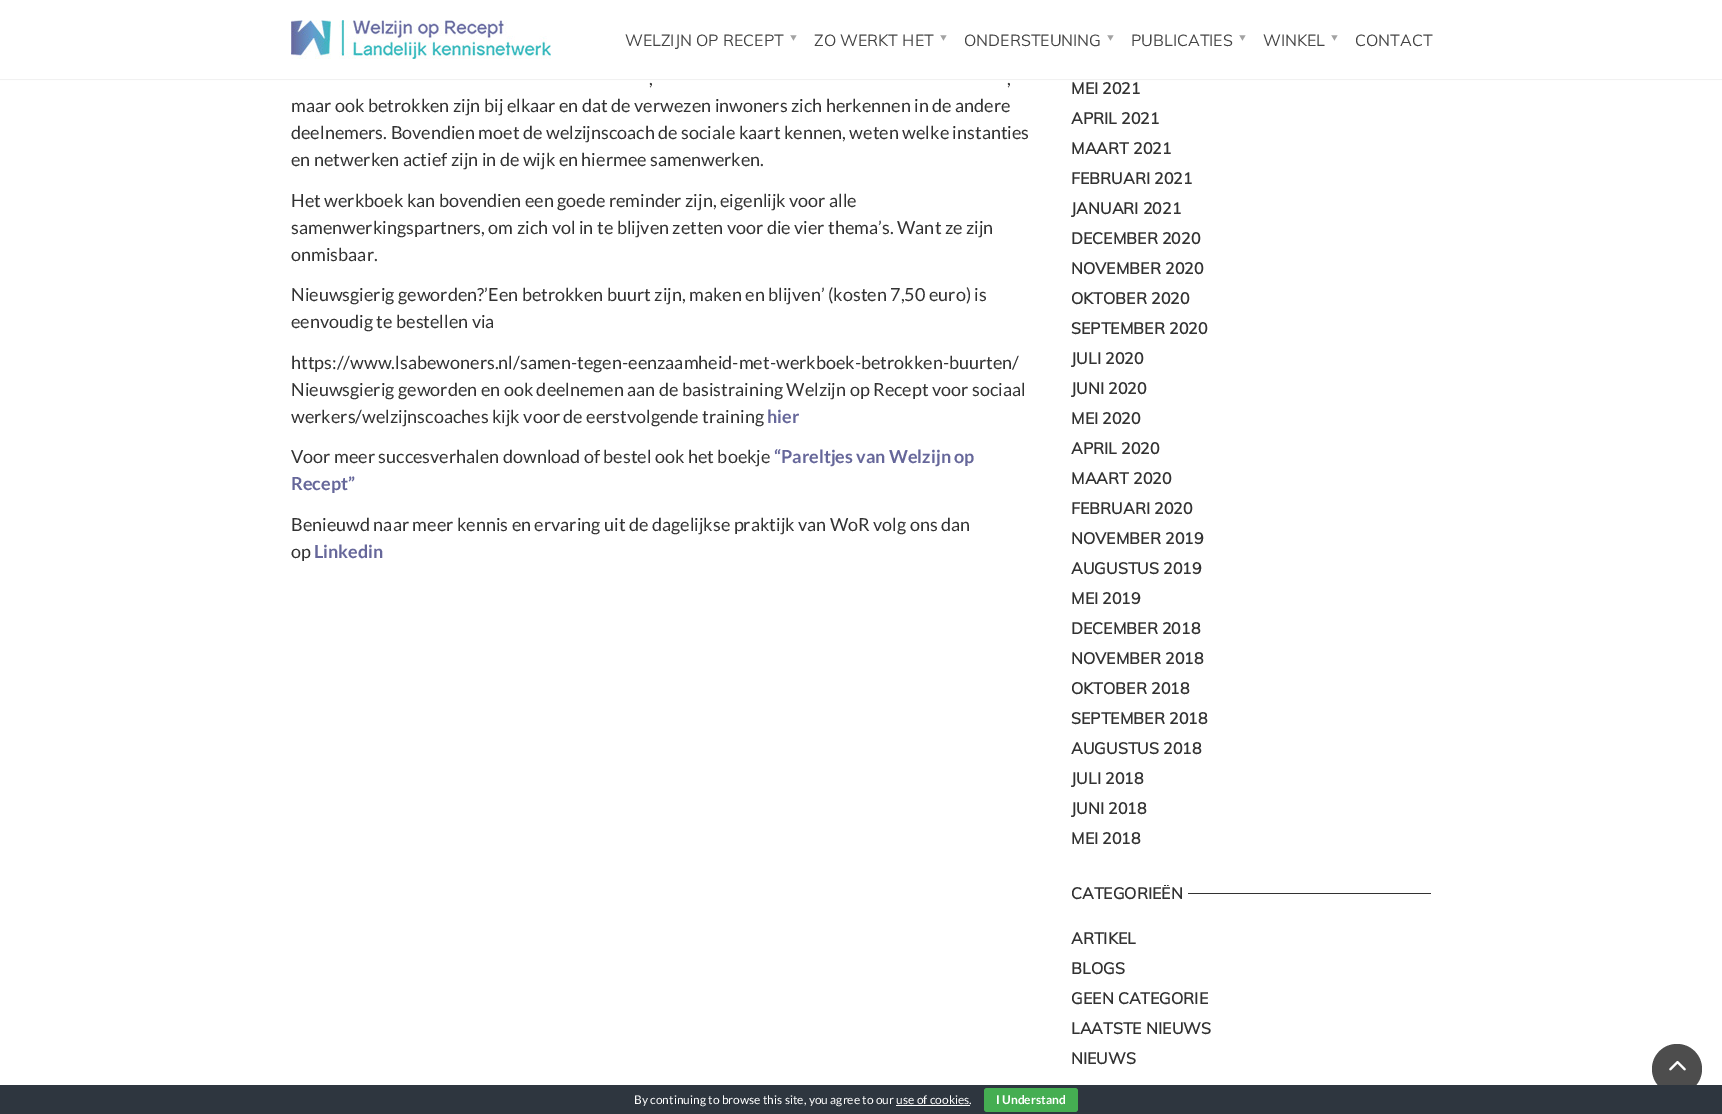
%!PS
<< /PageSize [1722 1114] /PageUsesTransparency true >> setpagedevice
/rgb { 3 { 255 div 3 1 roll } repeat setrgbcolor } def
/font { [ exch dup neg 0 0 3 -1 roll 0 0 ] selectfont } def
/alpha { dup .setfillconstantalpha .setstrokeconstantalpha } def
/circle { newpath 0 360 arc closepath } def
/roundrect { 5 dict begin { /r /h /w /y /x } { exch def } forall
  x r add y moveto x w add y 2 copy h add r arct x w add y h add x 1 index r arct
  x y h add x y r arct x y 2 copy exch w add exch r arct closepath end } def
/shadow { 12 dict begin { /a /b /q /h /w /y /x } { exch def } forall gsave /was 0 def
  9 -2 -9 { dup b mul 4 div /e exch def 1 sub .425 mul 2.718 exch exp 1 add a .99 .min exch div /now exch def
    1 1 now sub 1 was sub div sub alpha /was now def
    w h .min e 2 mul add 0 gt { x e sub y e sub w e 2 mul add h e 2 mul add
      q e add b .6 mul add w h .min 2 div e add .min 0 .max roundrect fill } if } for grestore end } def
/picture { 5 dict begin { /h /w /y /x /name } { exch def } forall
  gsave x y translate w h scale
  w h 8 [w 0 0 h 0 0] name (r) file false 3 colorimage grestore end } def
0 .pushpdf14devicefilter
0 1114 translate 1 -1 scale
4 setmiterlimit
255 255 255 rgb
0 0 1722 1114 rectfill
0 0 0 rgb
0 0 1722 79 0 0.5 0.2 shadow
255 255 255 rgb
0 0 1722 79 rectfill
(img/1.rgb) 291 20 260 39 picture
50 50 50 rgb
1188 893 243 1 rectfill
77 77 77 rgb
1677 1069 25 circle fill
(img/2.rgb) 1669 1060 17 11 picture
46 54 63 rgb
0 1085 1722 29 rectfill
69 174 82 rgb
984 1088 94 24 3 roundrect fill
255 255 255 rgb
896 1105 74 1 rectfill
/Muli-Regular 16 font
68 68 68 rgb
625 46 moveto (WELZIJN OP RECEPT) show
/NotoSans-Medium 20 font
162 162 162 rgb
gsave 786 34 translate 90 rotate 0 0 moveto (‣) show grestore
/Muli-Regular 16 font
68 68 68 rgb
814 46 moveto (ZO WERKT HET) show
/NotoSans-Medium 20 font
162 162 162 rgb
gsave 936 34 translate 90 rotate 0 0 moveto (‣) show grestore
/Muli-Regular 16 font
68 68 68 rgb
964 46 moveto (ONDERSTEUNING) show
/NotoSans-Medium 20 font
162 162 162 rgb
gsave 1103 34 translate 90 rotate 0 0 moveto (‣) show grestore
/Muli-Regular 16 font
68 68 68 rgb
1131 46 moveto (PUBLICATIES) show
/NotoSans-Medium 20 font
162 162 162 rgb
gsave 1235 34 translate 90 rotate 0 0 moveto (‣) show grestore
/Muli-Regular 16 font
68 68 68 rgb
1263 46 moveto (WINKEL) show
/NotoSans-Medium 20 font
162 162 162 rgb
gsave 1327 34 translate 90 rotate 0 0 moveto (‣) show grestore
/Muli-Regular 16 font
68 68 68 rgb
1355 46 moveto (CONTACT) show
/Lato-Regular 18 font
50 50 50 rgb
[
  [(,) 649 85]
  [(,) 1007 85]
  [(maar ook betrokken zijn bij elkaar en dat de verwezen inwoners zich herkennen in de andere) 291 112]
  [(deelnemers. Bovendien moet de welzijnscoach de sociale kaart kennen, weten welke instanties) 291 139]
  [(en netwerken actief zijn in de wijk en hiermee samenwerken.) 291 166]
  [(Het werkboek kan bovendien een goede reminder zijn, eigenlijk voor alle) 291 207]
  [(samenwerkingspartners, om zich vol in te blijven zetten voor die vier thema’s. Want ze zijn) 291 234]
  [(onmisbaar.) 291 261]
  [(Nieuwsgierig geworden?’Een betrokken buurt zijn, maken en blijven’ \(kosten 7,50 euro\) is) 291 301]
  [(eenvoudig te bestellen via) 291 328]
  [(https://www.lsabewoners.nl/samen-tegen-eenzaamheid-met-werkboek-betrokken-buurten/) 291 369]
  [(Nieuwsgierig geworden en ook deelnemen aan de basistraining Welzijn op Recept voor sociaal) 291 396]
  [(werkers/welzijnscoaches kijk voor de eerstvolgende training) 291 423]
] { aload pop moveto show } forall
/Lato-Bold 18 font
102 103 154 rgb
767 423 moveto (hier) show
/Lato-Regular 18 font
50 50 50 rgb
291 463 moveto (Voor meer succesverhalen download of bestel ook het boekje) show
/Lato-Bold 18 font
102 103 154 rgb
774 463 moveto (“Pareltjes van Welzijn op) show
291 490 moveto (Recept”) show
/Lato-Regular 18 font
50 50 50 rgb
291 531 moveto (Benieuwd naar meer kennis en ervaring uit de dagelijkse praktijk van WoR volg ons dan) show
291 558 moveto (op) show
/Lato-Bold 18 font
102 103 154 rgb
314 558 moveto (Linkedin) show
/Muli-Bold 16 font
50 50 50 rgb
[
  [(MEI 2021) 1071 94]
  [(APRIL 2021) 1071 124]
  [(MAART 2021) 1071 154]
  [(FEBRUARI 2021) 1071 184]
  [(JANUARI 2021) 1071 214]
  [(DECEMBER 2020) 1071 244]
  [(NOVEMBER 2020) 1071 274]
  [(OKTOBER 2020) 1071 304]
  [(SEPTEMBER 2020) 1071 334]
  [(JULI 2020) 1071 364]
  [(JUNI 2020) 1071 394]
  [(MEI 2020) 1071 424]
  [(APRIL 2020) 1071 454]
  [(MAART 2020) 1071 484]
  [(FEBRUARI 2020) 1071 514]
  [(NOVEMBER 2019) 1071 544]
  [(AUGUSTUS 2019) 1071 574]
  [(MEI 2019) 1071 604]
  [(DECEMBER 2018) 1071 634]
  [(NOVEMBER 2018) 1071 664]
  [(OKTOBER 2018) 1071 694]
  [(SEPTEMBER 2018) 1071 724]
  [(AUGUSTUS 2018) 1071 754]
  [(JULI 2018) 1071 784]
  [(JUNI 2018) 1071 814]
  [(MEI 2018) 1071 844]
] { aload pop moveto show } forall
gsave
1071 885 360 18 rectclip
1071 899 moveto (CATEGORIEËN) show
grestore
[
  [(ARTIKEL) 1071 944]
  [(BLOGS) 1071 974]
  [(GEEN CATEGORIE) 1071 1004]
  [(LAATSTE NIEUWS) 1071 1034]
  [(NIEUWS) 1071 1064]
] { aload pop moveto show } forall
/Lato-Regular 12 font
255 255 255 rgb
634 1104 moveto (By continuing to browse this site, you agree to our use of cookies.) show
/Lato-Bold 12 font
996 1104 moveto (I Understand) show
.poppdf14devicefilter showpage
